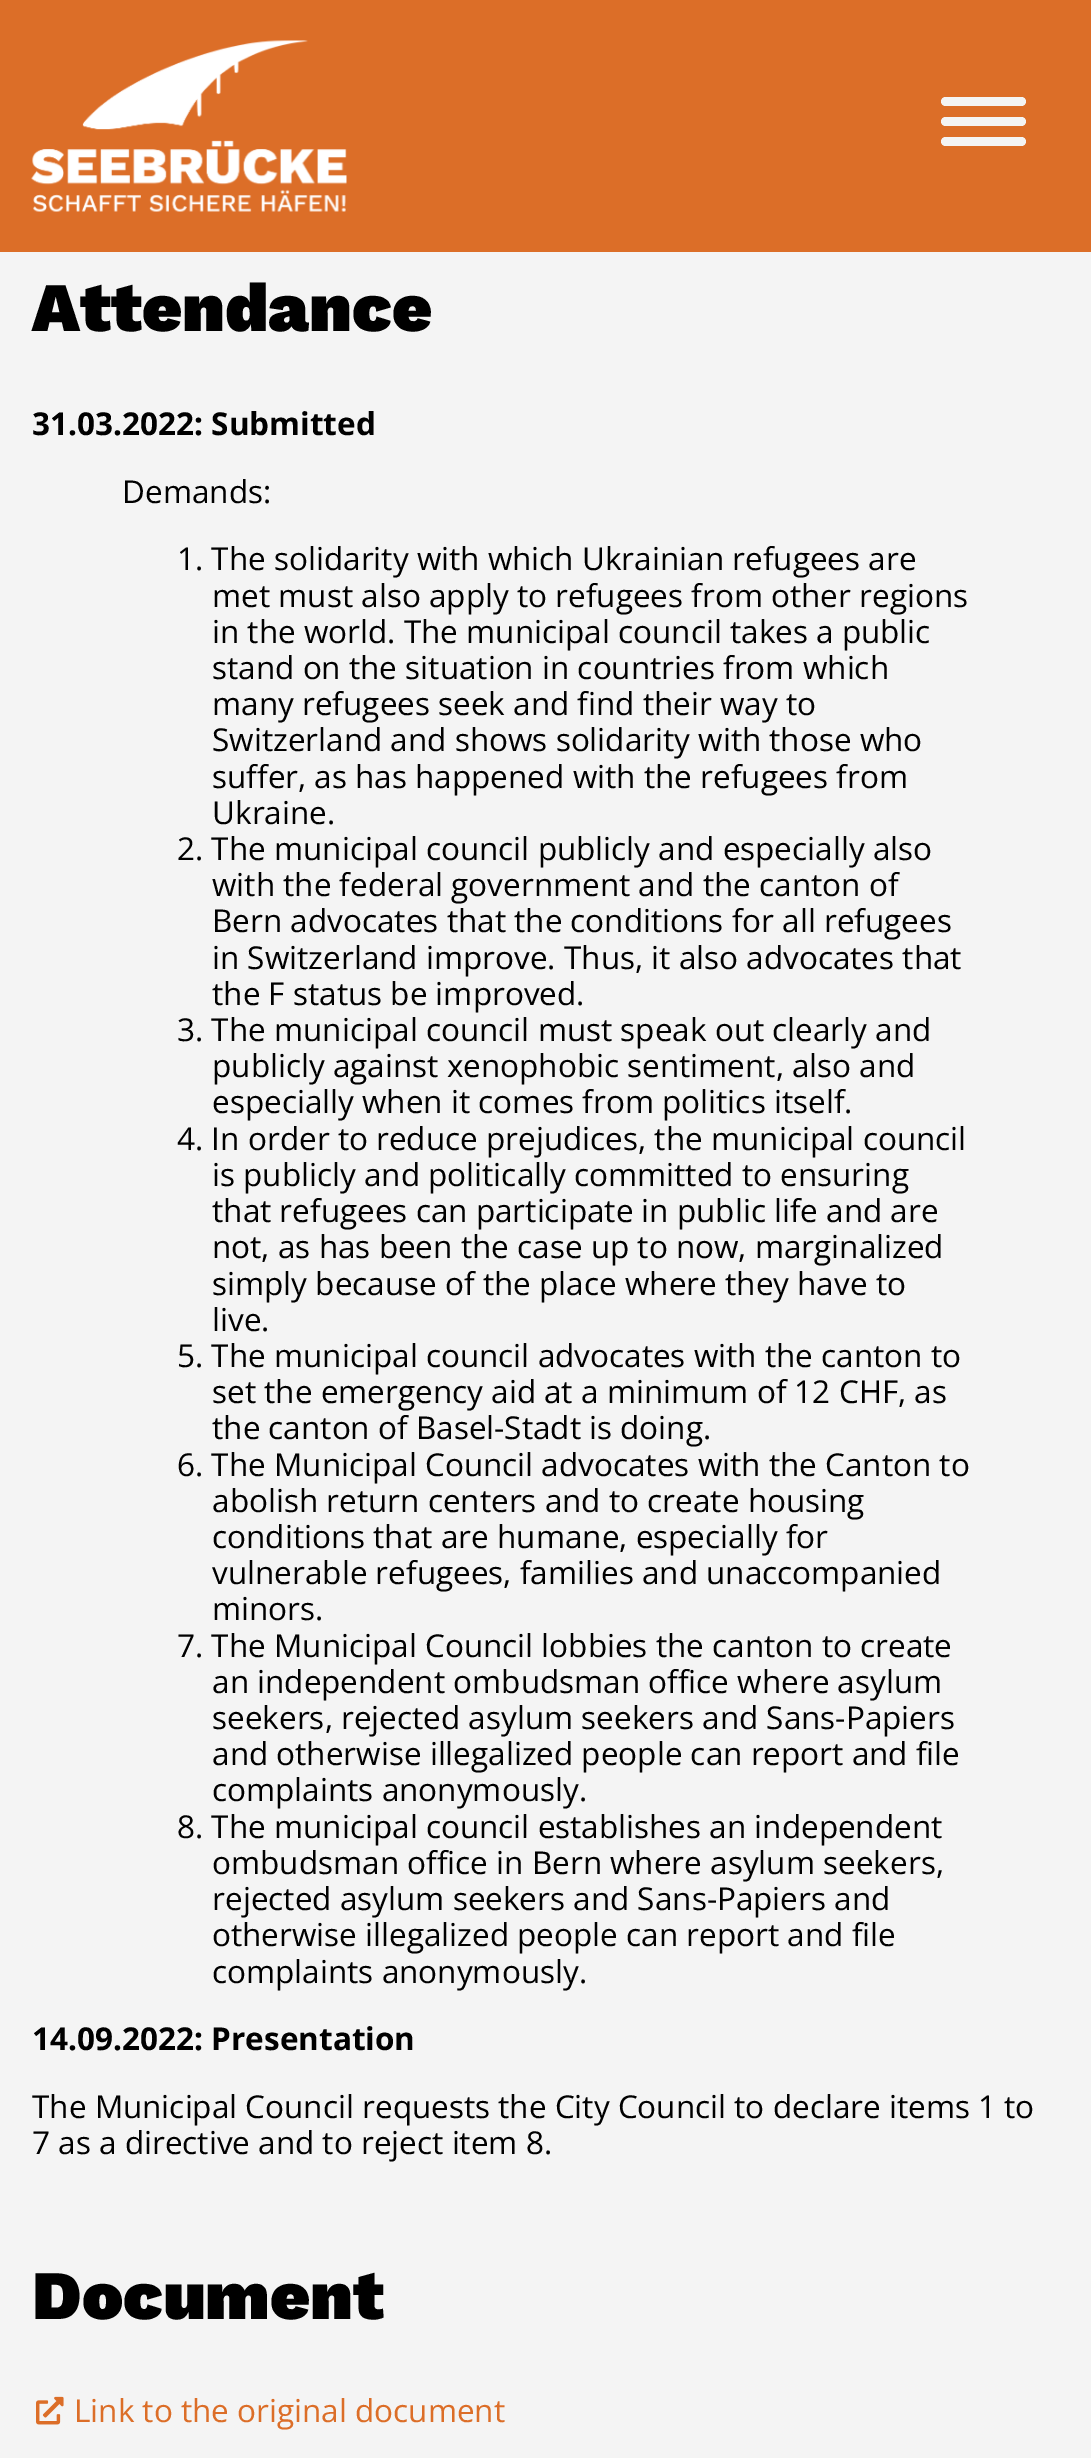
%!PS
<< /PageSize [1091 2458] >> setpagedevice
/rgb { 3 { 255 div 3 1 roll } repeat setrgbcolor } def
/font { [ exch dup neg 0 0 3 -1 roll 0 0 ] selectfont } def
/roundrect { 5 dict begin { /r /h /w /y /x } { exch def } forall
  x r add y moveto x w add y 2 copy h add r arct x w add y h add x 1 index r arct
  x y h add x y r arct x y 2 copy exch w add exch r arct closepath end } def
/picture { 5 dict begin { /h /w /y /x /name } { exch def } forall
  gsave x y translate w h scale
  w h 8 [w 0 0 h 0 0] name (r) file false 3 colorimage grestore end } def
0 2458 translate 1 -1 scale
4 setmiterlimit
244 244 244 rgb
0 0 1091 2458 rectfill
220 110 40 rgb
0 0 1091 252 rectfill
(img/1.rgb) 31 40 316 172 picture
244 244 244 rgb
941 117 85 9 4.5 roundrect fill
941 97 85 9 4.5 roundrect fill
941 137 85 9 4.5 roundrect fill
(img/2.rgb) 36 2396 28 29 picture
/WorkSans-Black 69.25 font
0 0 0 rgb
32 331 moveto (Attendance) show
/OpenSans-Bold 31.5 font
32 435 moveto (31.03.2022: Submitted) show
/OpenSans-Regular 31.5 font
[
  [(Demands:) 122 503]
  [(1. The solidarity with which Ukrainian refugees are) 177 570]
  [(met must also apply to refugees from other regions) 212 607]
  [(in the world. The municipal council takes a public) 212 643]
  [(stand on the situation in countries from which) 212 679]
  [(many refugees seek and find their way to) 212 715]
  [(Switzerland and shows solidarity with those who) 212 751]
  [(suffer, as has happened with the refugees from) 212 788]
  [(Ukraine.) 212 824]
  [(2. The municipal council publicly and especially also) 177 860]
  [(with the federal government and the canton of) 212 896]
  [(Bern advocates that the conditions for all refugees) 212 932]
  [(in Switzerland improve. Thus, it also advocates that) 212 969]
  [(the F status be improved.) 212 1005]
  [(3. The municipal council must speak out clearly and) 177 1041]
  [(publicly against xenophobic sentiment, also and) 212 1077]
  [(especially when it comes from politics itself.) 212 1113]
  [(4. In order to reduce prejudices, the municipal council) 177 1150]
  [(is publicly and politically committed to ensuring) 212 1186]
  [(that refugees can participate in public life and are) 212 1222]
  [(not, as has been the case up to now, marginalized) 212 1258]
  [(simply because of the place where they have to) 212 1295]
  [(live.) 212 1331]
  [(5. The municipal council advocates with the canton to) 177 1367]
  [(set the emergency aid at a minimum of 12 CHF, as) 212 1403]
  [(the canton of Basel-Stadt is doing.) 212 1439]
  [(6. The Municipal Council advocates with the Canton to) 177 1476]
  [(abolish return centers and to create housing) 212 1512]
  [(conditions that are humane, especially for) 212 1548]
  [(vulnerable refugees, families and unaccompanied) 212 1584]
  [(minors.) 212 1620]
  [(7. The Municipal Council lobbies the canton to create) 177 1657]
  [(an independent ombudsman office where asylum) 212 1693]
  [(seekers, rejected asylum seekers and Sans-Papiers) 212 1729]
  [(and otherwise illegalized people can report and file) 212 1765]
  [(complaints anonymously.) 212 1801]
  [(8. The municipal council establishes an independent) 177 1838]
  [(ombudsman office in Bern where asylum seekers,) 212 1874]
  [(rejected asylum seekers and Sans-Papiers and) 212 1910]
  [(otherwise illegalized people can report and file) 212 1946]
  [(complaints anonymously.) 212 1983]
] { aload pop moveto show } forall
/OpenSans-Bold 31.5 font
32 2050 moveto (14.09.2022: Presentation) show
/OpenSans-Regular 31.5 font
32 2118 moveto (The Municipal Council requests the City Council to declare items 1 to) show
32 2154 moveto (7 as a directive and to reject item 8.) show
/WorkSans-Black 69.25 font
32 2319 moveto (Document) show
/OpenSans-Regular 31.5 font
220 110 40 rgb
74 2422 moveto (Link to the original document) show
showpage
